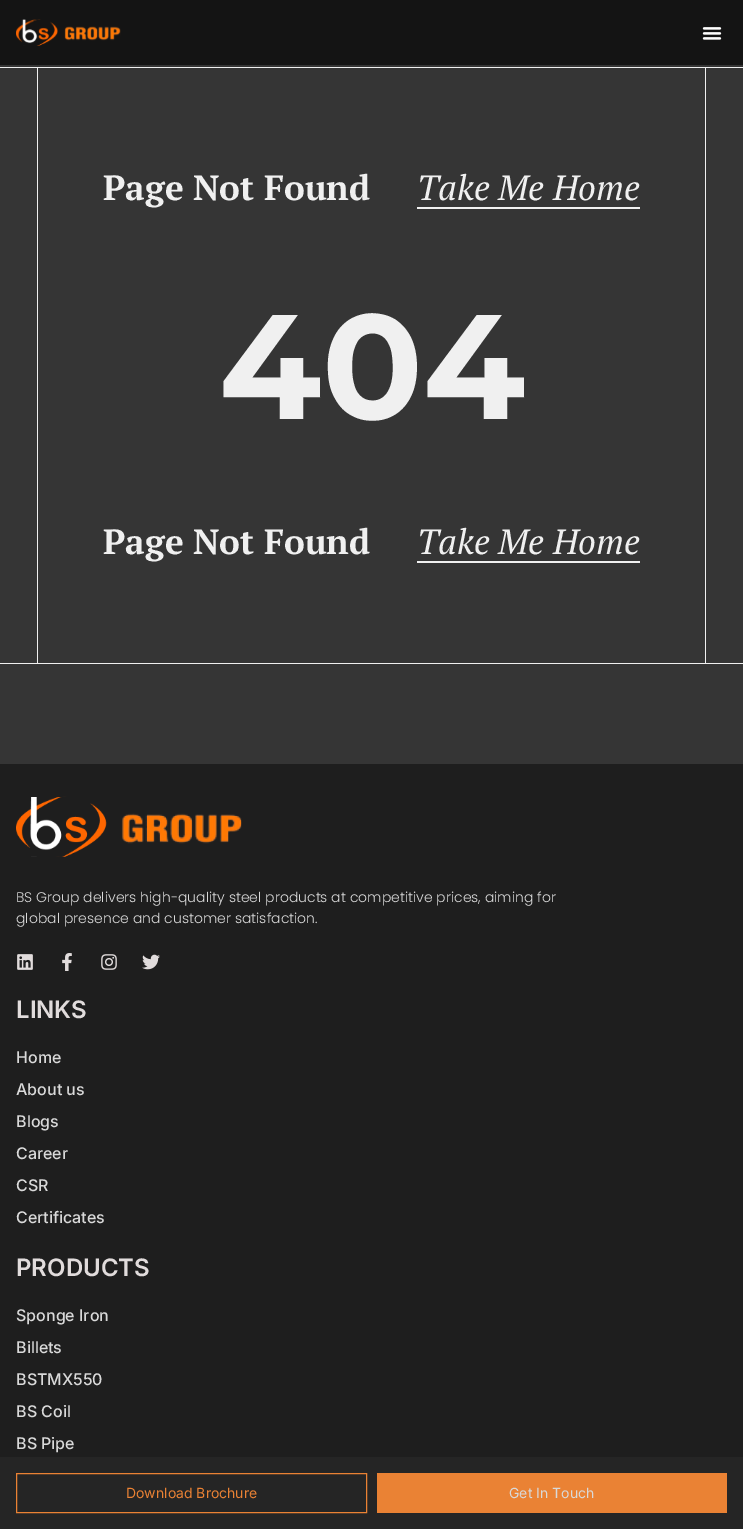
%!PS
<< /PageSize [743 1529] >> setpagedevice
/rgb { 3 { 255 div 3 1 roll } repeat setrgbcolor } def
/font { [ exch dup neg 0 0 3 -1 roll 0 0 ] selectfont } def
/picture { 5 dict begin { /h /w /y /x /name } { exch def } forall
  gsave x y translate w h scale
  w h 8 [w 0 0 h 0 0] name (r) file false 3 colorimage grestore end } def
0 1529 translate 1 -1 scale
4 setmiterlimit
53 53 53 rgb
0 0 743 1529 rectfill
[
  [0 67 743 1 240 240 240]
  [0 663 743 1 240 240 240]
  [705 68 1 595 240 240 240]
  [37 68 1 595 240 240 240]
  [417 207 223 2 240 240 240]
  [417 561 223 2 240 240 240]
  [0 764 743 693 30 30 30]
] { aload pop rgb rectfill } forall
(img/1.rgb) 16 796 226 61 picture
(img/2.rgb) 17 954 16 16 picture
(img/3.rgb) 62 953 10 18 picture
(img/4.rgb) 101 954 16 16 picture
(img/5.rgb) 142 954 18 16 picture
20 20 20 rgb
0 0 743 65 rectfill
(img/6.rgb) 16 19 105 27 picture
(img/7.rgb) 702 27 20 13 picture
37 37 37 rgb
0 1457 743 72 rectfill
234 130 52 rgb
16.5 1473.5 350 39 rectstroke
377 1473 350 40 rectfill
/PTSerif-Bold 35 font
240 240 240 rgb
103 200 moveto (Page Not Found) show
/PTSerif-Italic 35 font
417 200 moveto (Take Me Home) show
/Montserrat-Bold 149 font
219 419 moveto (404) show
/PTSerif-Bold 35 font
103 554 moveto (Page Not Found) show
/PTSerif-Italic 35 font
417 554 moveto (Take Me Home) show
/Poppins-Light 14 font
217 217 217 rgb
16 902 moveto (BS Group delivers high-quality steel products at competitive prices, aiming for) show
16 923 moveto (global presence and customer satisfaction.) show
/Inter-SemiBold 24 font
225 220 220 rgb
16 1018 moveto (LINKS) show
/Inter-Medium 16 font
217 217 217 rgb
[
  [(Home) 16 1063]
  [(About us) 16 1095]
  [(Blogs) 16 1127]
  [(Career) 16 1159]
  [(CSR) 16 1191]
  [(Certificates) 16 1223]
] { aload pop moveto show } forall
/Inter-SemiBold 24 font
225 220 220 rgb
16 1276 moveto (PRODUCTS) show
/Inter-Medium 16 font
217 217 217 rgb
[
  [(Sponge Iron) 16 1321]
  [(Billets) 16 1353]
  [(BSTMX550) 16 1385]
  [(BS Coil) 16 1417]
  [(BS Pipe) 16 1449]
] { aload pop moveto show } forall
/Inter-Regular 14 font
234 130 52 rgb
126 1498 moveto (Download Brochure) show
217 217 217 rgb
509 1498 moveto (Get In Touch) show
showpage
